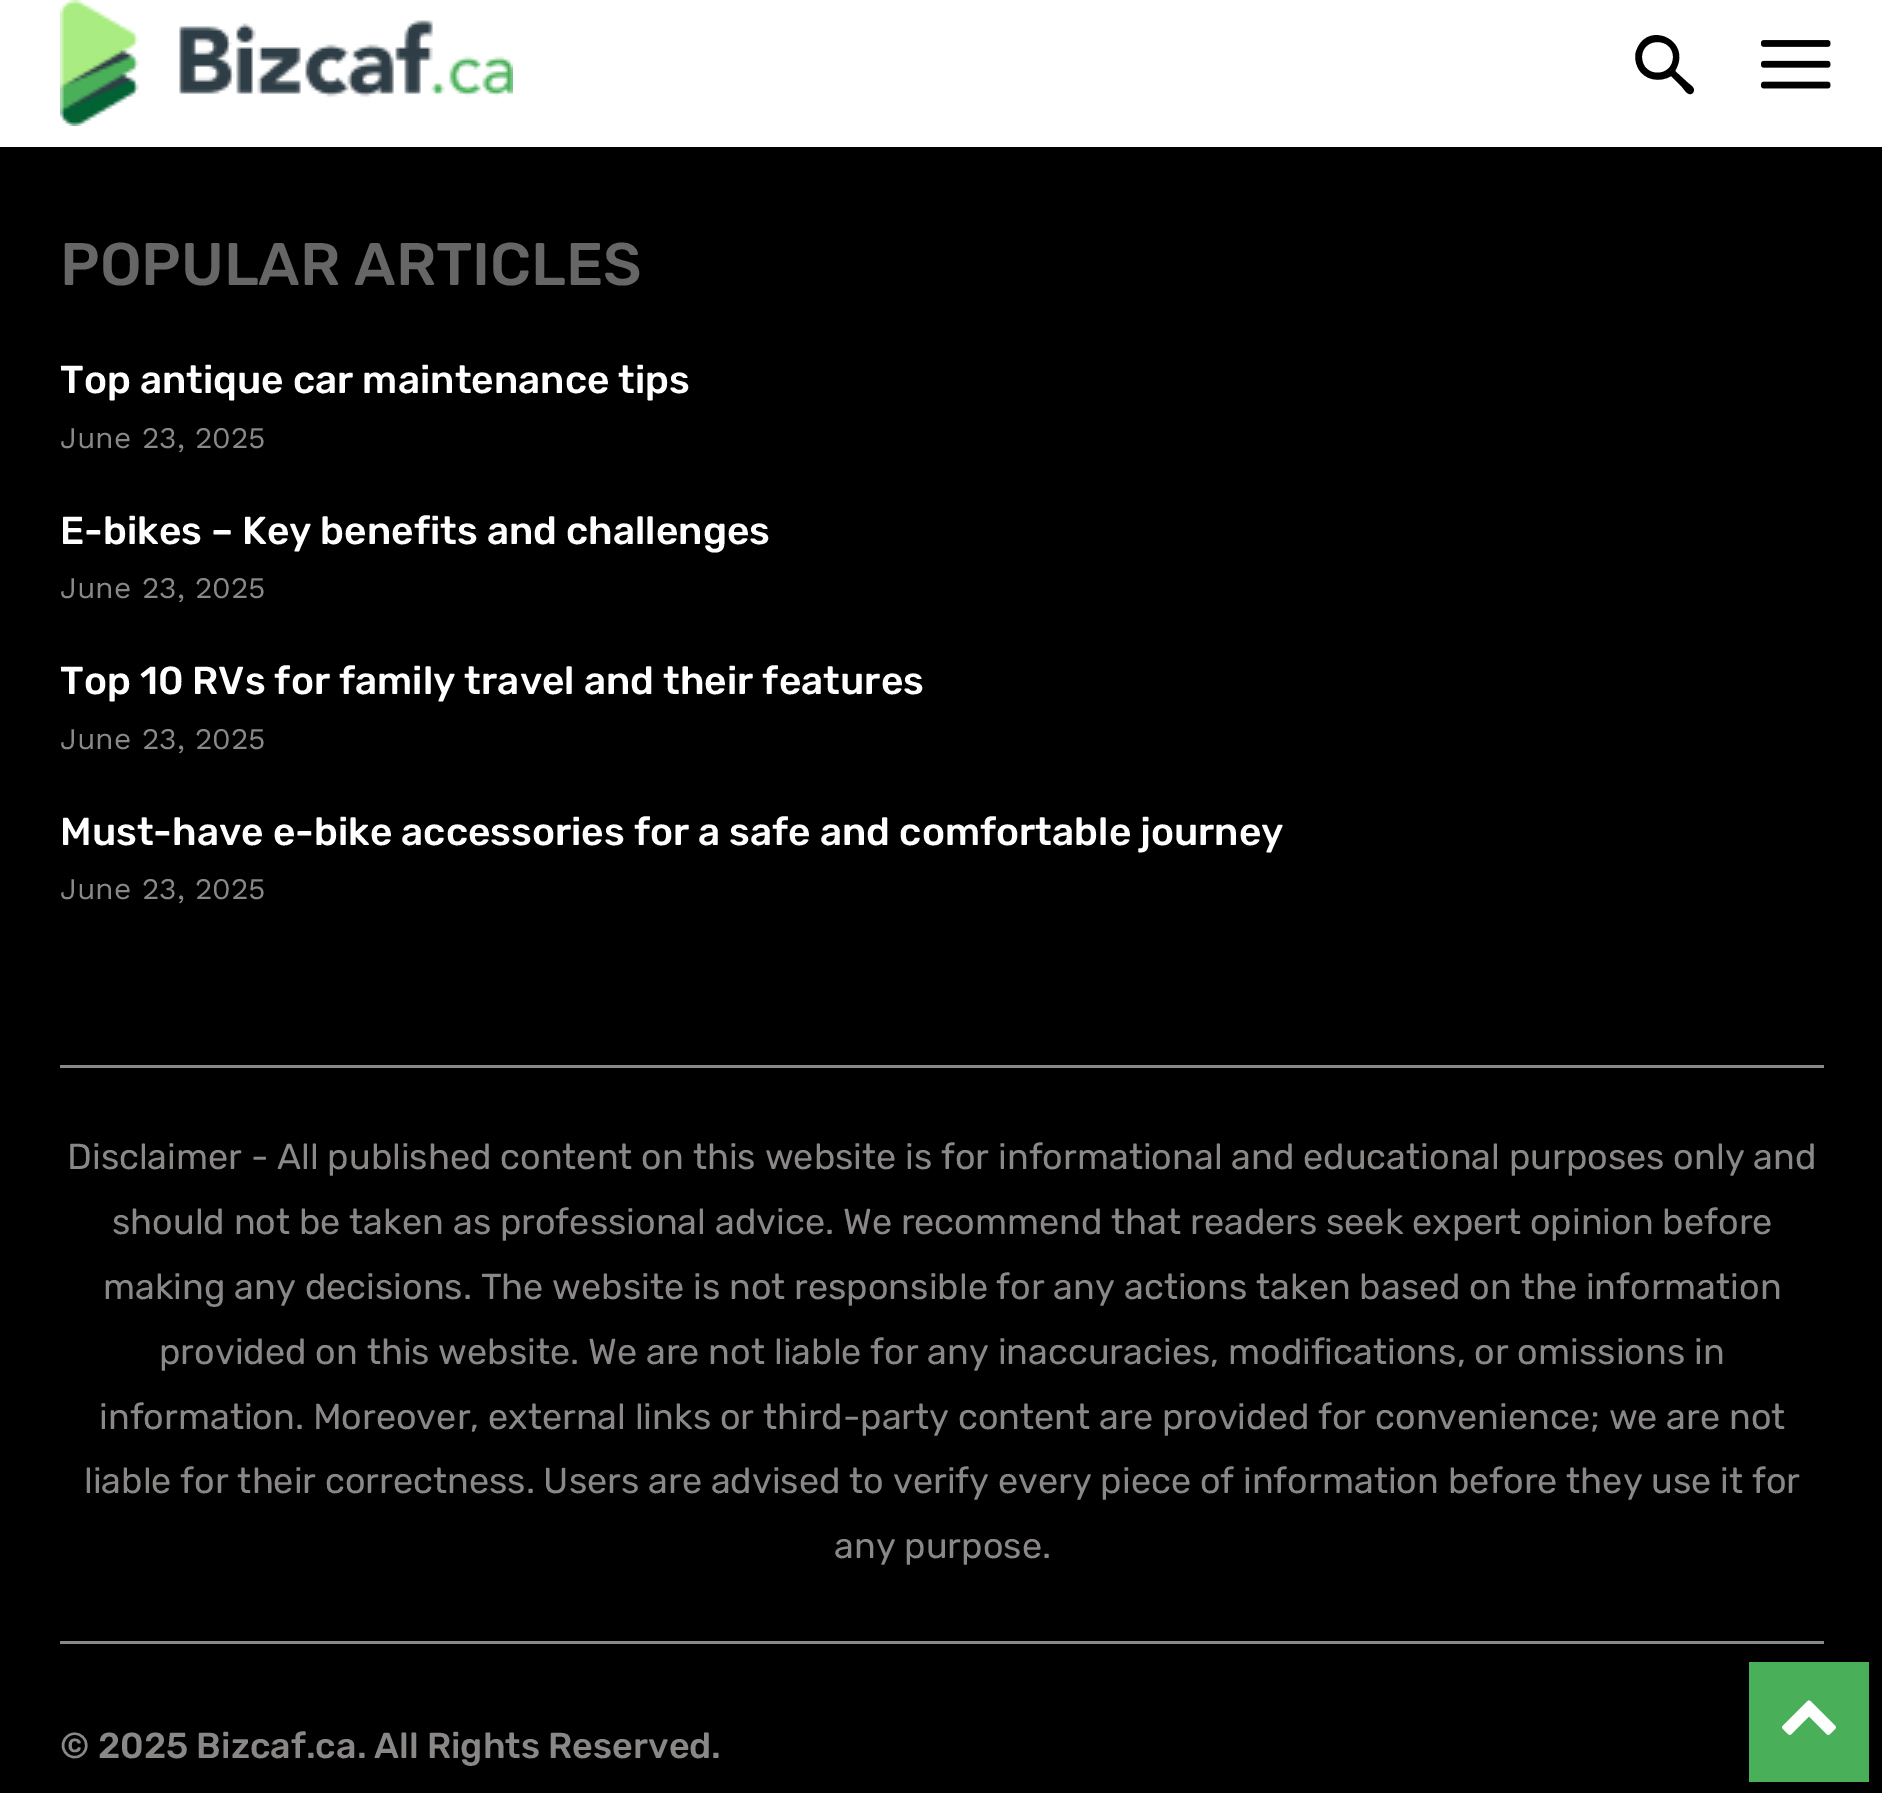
%!PS
<< /PageSize [1882 1793] >> setpagedevice
/rgb { 3 { 255 div 3 1 roll } repeat setrgbcolor } def
/font { [ exch dup neg 0 0 3 -1 roll 0 0 ] selectfont } def
/picture { 5 dict begin { /h /w /y /x /name } { exch def } forall
  gsave x y translate w h scale
  w h 8 [w 0 0 h 0 0] name (r) file false 3 colorimage grestore end } def
0 1793 translate 1 -1 scale
4 setmiterlimit
0 0 0 rgb
0 0 1882 1793 rectfill
255 255 255 rgb
0 0 1882 147 rectfill
(img/1.rgb) 60 0 453 126 picture
0 0 0 rgb
1673 57 moveto 1673 78 1642 78 1642 57 curveto 1642 37 1673 37 1673 57 curveto closepath 1694 90 moveto 1694 87 1689 84 1687 82 curveto 1675 71 lineto 1693 41 1649 20 1637 49 curveto 1634 55 1635 62 1638 68 curveto 1644 80 1660 83 1671 76 curveto 1682 87 lineto 1684 89 1687 95 1691 94 curveto 1692 94 1694 92 1694 90 curveto closepath fill
(img/2.rgb) 1761 40 70 49 picture
[
  [60 1065 1764 3 138 135 135]
  [60 1641 1764 3 138 135 135]
  [1749 1662 120 120 73 176 89]
] { aload pop rgb rectfill } forall
(img/3.rgb) 1782 1700 54 35 picture
/Rubik-Medium 60 font
102 102 102 rgb
60 285 moveto (POPULAR ARTICLES) show
/Rubik-Medium 39 font
255 255 255 rgb
60 393 moveto (Top antique car maintenance tips) show
/WorkSans-Regular 30 font
138 135 135 rgb
60 448 moveto (June 23, 2025) show
/Rubik-Medium 39 font
255 255 255 rgb
60 544 moveto (E-bikes – Key benefits and challenges) show
/WorkSans-Regular 30 font
138 135 135 rgb
60 598 moveto (June 23, 2025) show
/Rubik-Medium 39 font
255 255 255 rgb
60 694 moveto (Top 10 RVs for family travel and their features) show
/WorkSans-Regular 30 font
138 135 135 rgb
60 749 moveto (June 23, 2025) show
/Rubik-Medium 39 font
255 255 255 rgb
60 845 moveto (Must-have e-bike accessories for a safe and comfortable journey) show
/WorkSans-Regular 30 font
138 135 135 rgb
60 899 moveto (June 23, 2025) show
/Rubik-Regular 36 font
[
  [(Disclaimer - All published content on this website is for informational and educational purposes only and) 67 1169]
  [(should not be taken as professional advice. We recommend that readers seek expert opinion before) 112 1234]
  [(making any decisions. The website is not responsible for any actions taken based on the information) 103 1299]
  [(provided on this website. We are not liable for any inaccuracies, modifications, or omissions in) 159 1364]
  [(information. Moreover, external links or third-party content are provided for convenience; we are not) 99 1429]
  [(liable for their correctness. Users are advised to verify every piece of information before they use it for) 84 1493]
  [(any purpose.) 834 1558]
] { aload pop moveto show } forall
/Rubik-Medium 36 font
60 1758 moveto (© 2025 Bizcaf.ca. All Rights Reserved.) show
showpage
